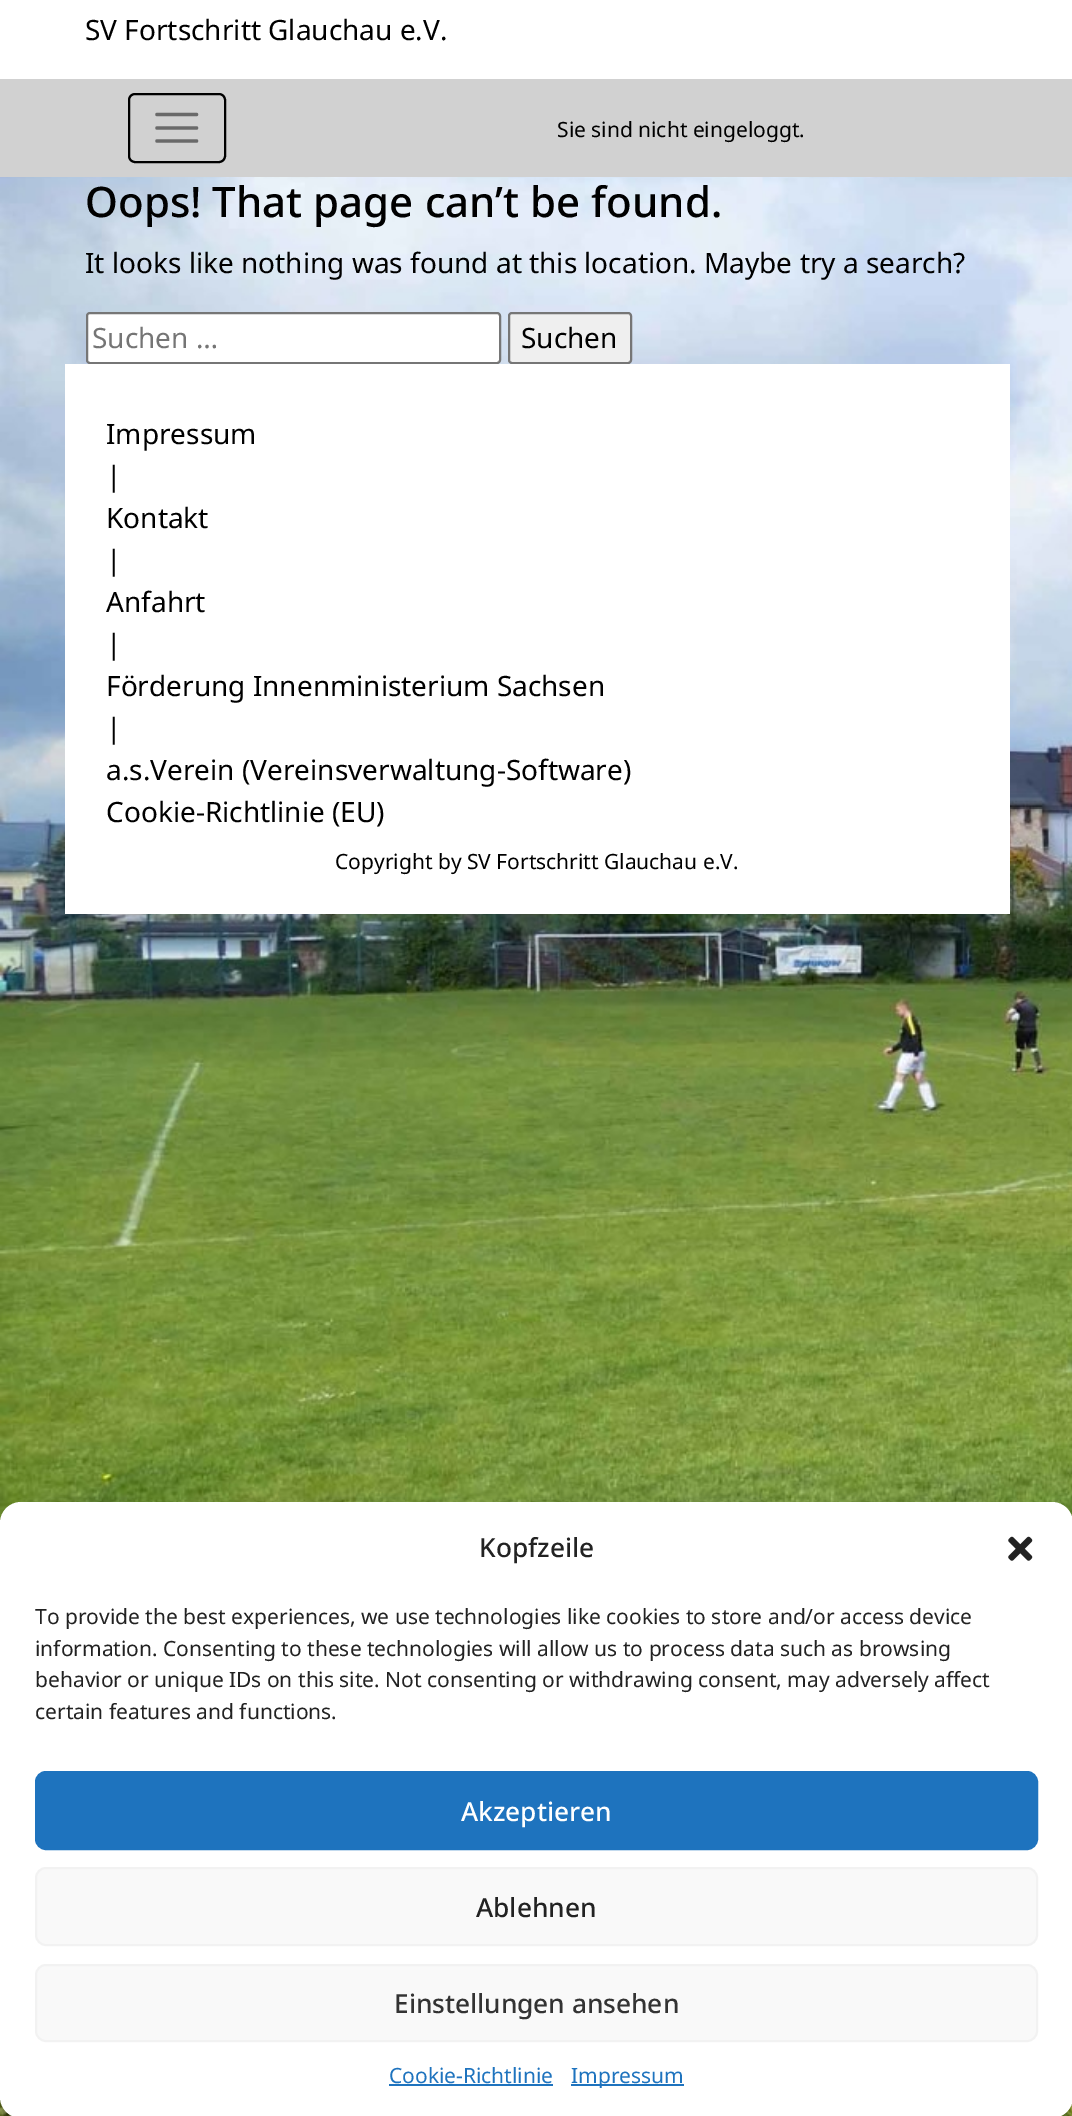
%!PS
<< /PageSize [1072 2116] /PageUsesTransparency true >> setpagedevice
/rgb { 3 { 255 div 3 1 roll } repeat setrgbcolor } def
/font { [ exch dup neg 0 0 3 -1 roll 0 0 ] selectfont } def
/alpha { dup .setfillconstantalpha .setstrokeconstantalpha } def
/roundrect { 5 dict begin { /r /h /w /y /x } { exch def } forall
  x r add y moveto x w add y 2 copy h add r arct x w add y h add x 1 index r arct
  x y h add x y r arct x y 2 copy exch w add exch r arct closepath end } def
/shadow { 12 dict begin { /a /b /q /h /w /y /x } { exch def } forall gsave /was 0 def
  9 -2 -9 { dup b mul 4 div /e exch def 1 sub .425 mul 2.718 exch exp 1 add a .99 .min exch div /now exch def
    1 1 now sub 1 was sub div sub alpha /was now def
    w h .min e 2 mul add 0 gt { x e sub y e sub w e 2 mul add h e 2 mul add
      q e add b .6 mul add w h .min 2 div e add .min 0 .max roundrect fill } if } for grestore end } def
/picture { 5 dict begin { /h /w /y /x /name } { exch def } forall
  gsave x y translate w h scale
  w h 8 [w 0 0 h 0 0] name (r) file false 3 colorimage grestore end } def
0 .pushpdf14devicefilter
0 2116 translate 1 -1 scale
4 setmiterlimit
255 255 255 rgb
0 0 1072 2116 rectfill
(img/1.rgb) 0 177 1072 1939 picture
209 209 209 rgb
0 79 1072 98 rectfill
0 0 0 rgb
2 setlinewidth
129 94 96 68 6 roundrect stroke
105 105 105 rgb
3.3 setlinewidth
1 setlinecap
157 114.5 moveto 196.5 114.5 lineto 157 128 moveto 196.5 128 lineto 157 141 moveto 196.5 141 lineto stroke
255 255 255 rgb
87 313 413 50 3 roundrect gsave fill grestore
118 118 118 rgb
2 setlinewidth
0 setlinecap
stroke
239 239 239 rgb
509 313 122 50 3 roundrect gsave fill grestore
118 118 118 rgb
stroke
255 255 255 rgb
65 364 945 550 rectfill
0 0 0 rgb
0 1512 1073 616 21 5 0.23 shadow
0 1519 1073 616 21 17.5 0.19 shadow
255 255 255 rgb
0 1502 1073 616 21 roundrect fill
(img/2.rgb) 1008 1536 25 25 picture
30 115 190 rgb
36 1772 1001 77 10 roundrect gsave fill grestore
stroke
249 249 249 rgb
36 1868 1001 77 10 roundrect gsave fill grestore
242 242 242 rgb
stroke
249 249 249 rgb
36 1965 1001 76 10 roundrect gsave fill grestore
242 242 242 rgb
stroke
30 115 190 rgb
389 2084 164 2 rectfill
571 2084 113 2 rectfill
/NotoSans-Regular 28 font
0 0 0 rgb
85 40 moveto (SV Fortschritt Glauchau e.V.) show
/NotoSans-Regular 21 font
557 137 moveto (Sie sind nicht eingeloggt.) show
/NotoSans-Medium 42 font
85 217 moveto (Oops! That page can’t be found.) show
/NotoSans-Regular 28 font
85 273 moveto (It looks like nothing was found at this location. Maybe try a search?) show
117 117 117 rgb
92 348 moveto (Suchen …) show
0 0 0 rgb
[
  [(Suchen) 521 348]
  [(Impressum) 106 444]
  [(|) 106 486]
  [(Kontakt) 106 528]
  [(|) 106 570]
  [(Anfahrt) 106 612]
  [(|) 106 654]
  [(Förderung Innenministerium Sachsen) 106 696]
  [(|) 106 738]
  [(a.s.Verein \(Vereinsverwaltung-Software\)) 106 780]
  [(Cookie-Richtlinie \(EU\)) 106 822]
] { aload pop moveto show } forall
/NotoSans-Regular 21 font
335 869 moveto (Copyright by SV Fortschritt Glauchau e.V.) show
/NotoSans-Medium 26.25 font
34 34 34 rgb
479 1557 moveto (Kopfzeile) show
/NotoSans-Regular 21 font
[
  [(To provide the best experiences, we use technologies like cookies to store and/or access device) 35 1624]
  [(information. Consenting to these technologies will allow us to process data such as browsing) 35 1656]
  [(behavior or unique IDs on this site. Not consenting or withdrawing consent, may adversely affect) 35 1687]
  [(certain features and functions.) 35 1719]
] { aload pop moveto show } forall
/NotoSans-Medium 26.25 font
255 255 255 rgb
461 1821 moveto (Akzeptieren) show
34 34 34 rgb
476 1917 moveto (Ablehnen) show
51 51 51 rgb
394 2013 moveto (Einstellungen ansehen) show
/NotoSans-Regular 21 font
30 115 190 rgb
389 2083 moveto (Cookie-Richtlinie) show
571 2083 moveto (Impressum) show
.poppdf14devicefilter showpage
